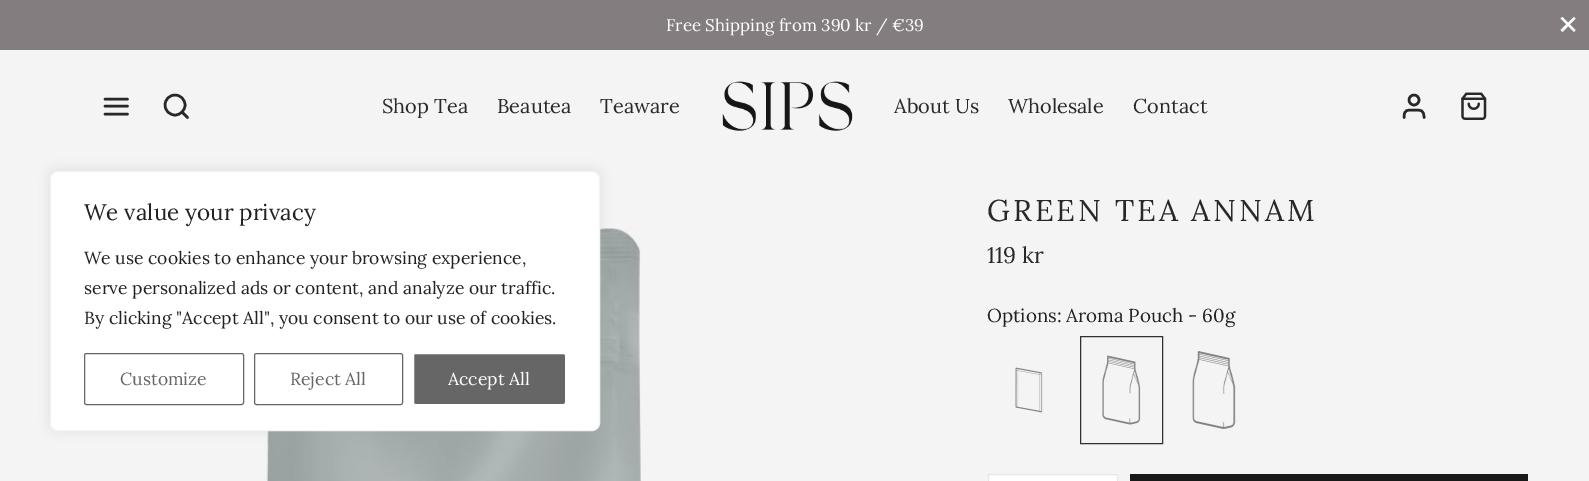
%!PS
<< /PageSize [1589 481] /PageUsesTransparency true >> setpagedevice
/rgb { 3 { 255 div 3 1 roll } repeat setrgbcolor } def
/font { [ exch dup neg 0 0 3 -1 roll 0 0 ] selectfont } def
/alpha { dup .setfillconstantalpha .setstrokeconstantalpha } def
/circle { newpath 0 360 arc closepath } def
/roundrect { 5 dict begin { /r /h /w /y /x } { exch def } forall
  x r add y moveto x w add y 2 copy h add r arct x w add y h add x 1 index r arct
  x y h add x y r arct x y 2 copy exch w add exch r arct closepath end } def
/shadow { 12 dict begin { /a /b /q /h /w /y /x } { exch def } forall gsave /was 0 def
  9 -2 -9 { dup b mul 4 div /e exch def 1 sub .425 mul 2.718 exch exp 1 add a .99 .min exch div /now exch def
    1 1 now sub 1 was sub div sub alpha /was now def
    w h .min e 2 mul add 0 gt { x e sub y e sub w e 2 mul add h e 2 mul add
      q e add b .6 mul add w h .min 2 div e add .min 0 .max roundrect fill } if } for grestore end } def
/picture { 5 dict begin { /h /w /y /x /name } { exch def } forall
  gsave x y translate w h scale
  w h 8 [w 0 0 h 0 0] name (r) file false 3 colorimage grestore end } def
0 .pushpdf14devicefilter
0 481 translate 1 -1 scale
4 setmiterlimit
244 244 244 rgb
0 0 1589 481 rectfill
132 125 127 rgb
0 0 1589 50 rectfill
255 255 255 rgb
1562.5 17 moveto 1575.5 30 lineto 1574 32 lineto 1560.5 18.5 lineto closepath fill
1560.5 30 moveto 1574 17 lineto 1575.5 18.5 lineto 1562.5 32 lineto closepath fill
(img/3.rgb) 266 228 376 253 picture
172 171 171 rgb
50 170 550 260 8 6 0.3 shadow
255 255 255 rgb
50.5 171.5 549 259 7.5 roundrect gsave fill grestore
244 244 244 rgb
stroke
102 102 102 rgb
84.5 353.5 159 51 2 roundrect stroke
254.5 353.5 148 51 2 roundrect stroke
413.5 353.5 152 51 2 roundrect gsave fill grestore
255 255 255 rgb
stroke
40 40 40 rgb
2.5 setlinewidth
1 setlinecap
1 setlinejoin
105 106 moveto 127.5 106 lineto 105 99 moveto 127.5 99 lineto 105 114 moveto 127.5 114 lineto stroke
0 setlinecap
0 setlinejoin
175 105 10 circle stroke
1 setlinecap
1 setlinejoin
187.5 117.5 moveto 182 112 lineto stroke
(img/1.rgb) 722 81 131 50 picture
1424 117.5 moveto 1424 109.5 1420.5 110 1414 110 curveto 1407 110 1404 109.5 1404 117.5 curveto stroke
0 setlinecap
0 setlinejoin
1414 100 5 circle stroke
(img/2.rgb) 1461 92 26 28 picture
(img/4.rgb) 1015 367 28 46 picture
49 49 49 rgb
1 setlinewidth
1080.5 336.5 82 107 rectstroke
(img/5.rgb) 1102 355 39 70 picture
(img/6.rgb) 1192 351 44 78 picture
255 255 255 rgb
988.5 474.5 moveto 1117.5 474.5 lineto 1117.5 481.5 lineto 988.5 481.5 lineto closepath gsave fill grestore
230 230 230 rgb
stroke
24 24 24 rgb
1130 474 398 7 rectfill
/Lora-Regular 16.9 font
255 255 255 rgb
666 31 moveto (Free Shipping from 390 kr / €39) show
/Lora-Regular 22.5 font
34 34 34 rgb
84 220 moveto (We value your privacy) show
/Lora-Regular 17.5 font
[
  [(We use cookies to enhance your browsing experience,) 84 264]
  [(serve personalized ads or content, and analyze our traffic.) 84 294]
  [(By clicking "Accept All", you consent to our use of cookies.) 84 324]
] { aload pop moveto show } forall
102 102 102 rgb
120 385 moveto (Customize) show
290 385 moveto (Reject All) show
255 255 255 rgb
448 385 moveto (Accept All) show
/Lora-Regular 20 font
40 40 40 rgb
[
  [(Shop Tea) 382 113]
  [(Beautea) 497 113]
  [(Teaware) 600 113]
  [(About Us) 894 113]
  [(Wholesale) 1008 113]
  [(Contact) 1133 113]
] { aload pop moveto show } forall
/Lora-Regular 30 font
987 221 moveto 3 0 (GREEN TEA ANNAM) ashow
/Lora-Regular 22.5 font
987 263 moveto (119 kr) show
/Lora-Regular 18.75 font
34 34 34 rgb
987 322 moveto (Options: Aroma Pouch - 60g) show
.poppdf14devicefilter showpage
